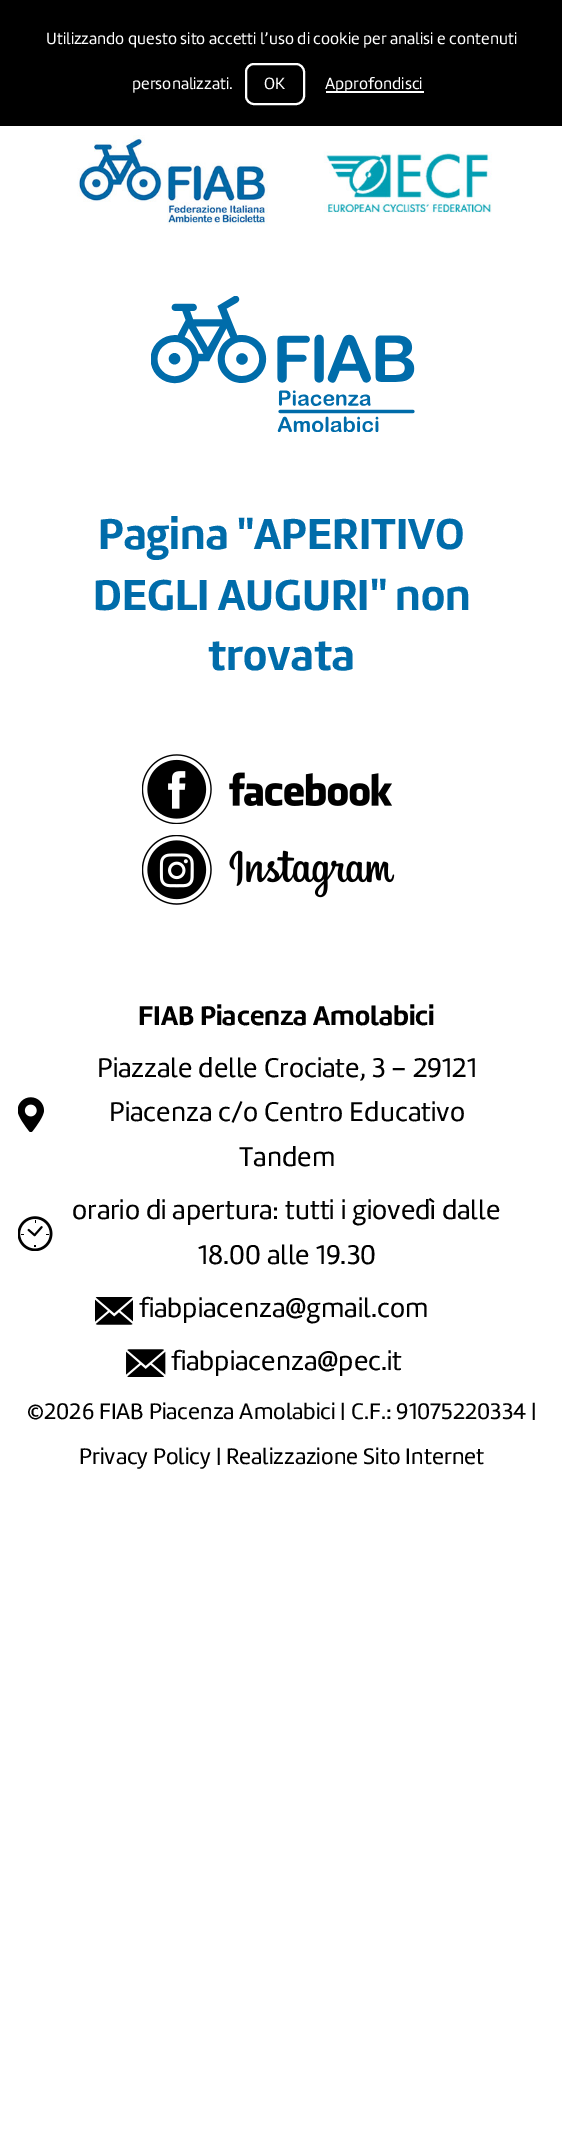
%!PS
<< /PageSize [562 2140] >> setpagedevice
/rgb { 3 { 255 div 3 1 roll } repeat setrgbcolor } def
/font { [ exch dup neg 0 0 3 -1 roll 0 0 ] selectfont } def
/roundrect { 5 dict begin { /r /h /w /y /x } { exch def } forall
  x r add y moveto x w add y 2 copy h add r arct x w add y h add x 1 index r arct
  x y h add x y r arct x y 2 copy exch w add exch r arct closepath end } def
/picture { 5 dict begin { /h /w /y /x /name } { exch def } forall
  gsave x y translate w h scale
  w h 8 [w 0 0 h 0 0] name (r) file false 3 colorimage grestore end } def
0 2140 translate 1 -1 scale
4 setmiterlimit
255 255 255 rgb
0 0 562 2140 rectfill
0 0 0 rgb
0 0 562 126 rectfill
255 255 255 rgb
2 setlinewidth
246 64 58 40 8 roundrect stroke
326 91 98 2 rectfill
(img/1.rgb) 77 135 415 90 picture
(img/2.rgb) 151 296 264 136 picture
(img/3.rgb) 142 754 250 70 picture
(img/4.rgb) 142 835 253 70 picture
(img/5.rgb) 18 1097 26 35 picture
(img/6.rgb) 18 1216 35 35 picture
(img/7.rgb) 95 1297 38 28 picture
(img/8.rgb) 126 1349 40 28 picture
/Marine-Regular 16.8 font
[
  [(Utilizzando questo sito accetti l’uso di cookie per analisi e contenuti) 46 44]
  [(personalizzati.) 132 89]
  [(OK) 264 89]
  [(Approfondisci) 325 89]
] { aload pop moveto show } forall
/Marine-Bold 44.75 font
0 108 170 rgb
[
  [(Pagina "APERITIVO) 98 549]
  [(DEGLI AUGURI" non) 93 610]
  [(trovata) 208 670]
] { aload pop moveto show } forall
/Marine-Bold 28 font
0 0 0 rgb
138 1025 moveto (FIAB Piacenza Amolabici) show
/Marine-Regular 28 font
[
  [(Piazzale delle Crociate, 3 – 29121) 97 1077]
  [(Piacenza c/o Centro Educativo) 109 1121]
  [(Tandem) 239 1166]
  [(orario di apertura: tutti i giovedì dalle) 72 1219]
  [(18.00 alle 19.30) 198 1264]
  [(fiabpiacenza@gmail.com) 139 1317]
  [(fiabpiacenza@pec.it) 171 1370]
] { aload pop moveto show } forall
/Marine-Regular 23.3 font
27 1419 moveto (©2026 FIAB Piacenza Amolabici | C.F.: 91075220334 |) show
79 1464 moveto (Privacy Policy | Realizzazione Sito Internet) show
showpage
